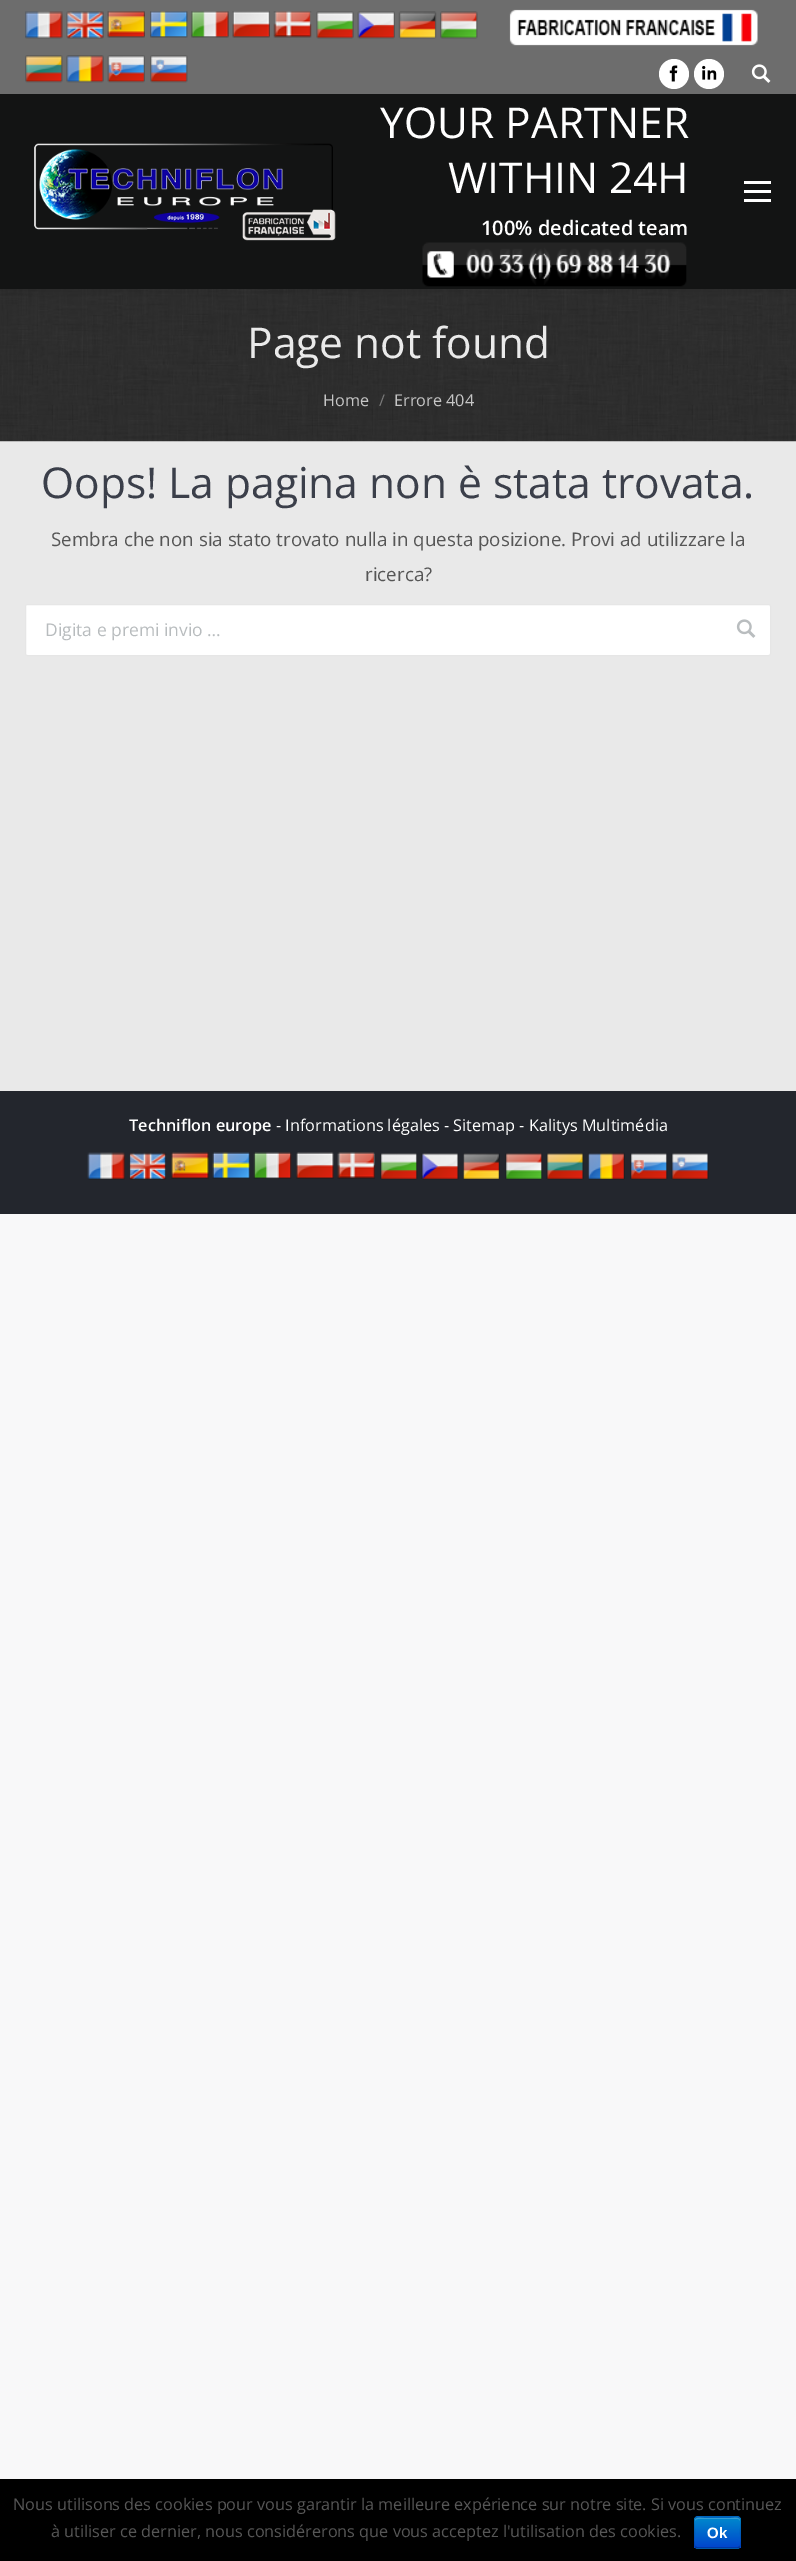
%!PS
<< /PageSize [796 2561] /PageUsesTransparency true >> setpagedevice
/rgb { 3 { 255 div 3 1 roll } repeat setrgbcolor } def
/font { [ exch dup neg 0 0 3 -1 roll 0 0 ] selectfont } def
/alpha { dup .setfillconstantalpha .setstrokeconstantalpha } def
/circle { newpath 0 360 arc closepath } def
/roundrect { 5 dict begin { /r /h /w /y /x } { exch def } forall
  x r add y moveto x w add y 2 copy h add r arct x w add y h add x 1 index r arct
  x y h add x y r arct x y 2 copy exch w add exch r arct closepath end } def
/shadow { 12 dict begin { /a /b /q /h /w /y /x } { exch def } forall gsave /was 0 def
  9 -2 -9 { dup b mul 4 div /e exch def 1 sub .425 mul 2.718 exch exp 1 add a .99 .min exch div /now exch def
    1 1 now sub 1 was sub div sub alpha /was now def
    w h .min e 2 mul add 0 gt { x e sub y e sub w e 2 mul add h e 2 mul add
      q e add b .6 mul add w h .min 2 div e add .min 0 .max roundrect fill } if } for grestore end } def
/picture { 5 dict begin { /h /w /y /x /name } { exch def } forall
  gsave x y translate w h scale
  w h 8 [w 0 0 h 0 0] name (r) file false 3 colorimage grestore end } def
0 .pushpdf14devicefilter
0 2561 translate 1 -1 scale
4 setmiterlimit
248 248 249 rgb
0 0 796 2561 rectfill
233 233 233 rgb
0 441 796 650 rectfill
(img/22.rgb) 0 289 796 153 picture
0 0 0 rgb
-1 -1 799 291 0 9.5 0.07 shadow
19 20 20 rgb
0 94 796 195 rectfill
109 109 109 rgb
0 0 796 94 rectfill
(img/1.rgb) 25 11 38 28 picture
(img/2.rgb) 66 11 38 28 picture
(img/3.rgb) 107 11 38 27 picture
(img/4.rgb) 150 11 38 27 picture
(img/5.rgb) 191 11 38 27 picture
(img/6.rgb) 232 11 38 27 picture
(img/7.rgb) 273 11 39 27 picture
(img/8.rgb) 316 11 38 28 picture
(img/9.rgb) 357 11 38 28 picture
(img/10.rgb) 398 11 39 28 picture
(img/11.rgb) 440 11 38 28 picture
(img/12.rgb) 25 55 38 28 picture
(img/13.rgb) 66 55 38 28 picture
(img/14.rgb) 107 55 38 28 picture
(img/15.rgb) 150 55 38 28 picture
(img/16.rgb) 509 9 249 37 picture
255 255 255 rgb
674 74 15 circle fill
(img/17.rgb) 669 65 9 17 picture
709 74 15 circle fill
(img/18.rgb) 702 65 15 15 picture
(img/19.rgb) 751 64 20 19 picture
(img/20.rgb) 34 143 302 98 picture
(img/21.rgb) 422 242 265 45 picture
[
  [744 190 27 3 255 255 255]
  [744 181 27 3 255 255 255]
  [744 199 27 3 255 255 255]
] { aload pop rgb rectfill } forall
25.5 604.5 745 51 2 roundrect gsave fill grestore
230 230 230 rgb
stroke
(img/23.rgb) 736 619 20 19 picture
35 38 45 rgb
0 1091 796 123 rectfill
(img/24.rgb) 87 1152 38 28 picture
(img/25.rgb) 129 1152 38 28 picture
(img/26.rgb) 171 1152 38 27 picture
(img/27.rgb) 212 1152 38 27 picture
(img/28.rgb) 253 1152 39 27 picture
(img/29.rgb) 296 1152 38 27 picture
(img/30.rgb) 337 1152 38 27 picture
(img/31.rgb) 380 1153 38 27 picture
(img/32.rgb) 421 1153 38 27 picture
(img/33.rgb) 463 1153 37 27 picture
(img/34.rgb) 505 1153 38 27 picture
(img/35.rgb) 546 1153 38 27 picture
(img/36.rgb) 588 1152 37 28 picture
(img/37.rgb) 630 1153 38 27 picture
(img/38.rgb) 671 1153 38 27 picture
0 0 0 rgb
0 2479 796 82 rectfill
0 109 204 rgb
694 2516 47 33 4 roundrect fill
gsave
694 2516 47 33 4 roundrect clip newpath
gsave 694 2518 moveto 741 2518 lineto 741 2548 lineto 694 2548 lineto closepath clip newpath
<< /ShadingType 2 /ColorSpace /DeviceRGB /Coords [718 2518 718 2548] /Extend [true true] /Function << /FunctionType 2 /Domain [0 1] /C0 [0 0.533 0.8] /C1 [0 0.267 0.8] /N 1 >> >> shfill grestore
grestore
51 159 214 rgb
698 2519 moveto 738 2519 lineto 739 2519 740 2520 740 2521 curveto 740 2516 734 2518 731 2518 curveto 704 2518 lineto 701 2518 695 2516 695 2521 curveto 695 2520 696 2519 698 2519 curveto closepath fill
0.25 alpha
0 0 0 rgb
1.2 setlinewidth
739.5 2547 moveto 737.5 2548 lineto 697.5 2548 lineto 695.5 2547 lineto stroke
0.1 alpha
695.5 2547 moveto 693 2545 694.5 2535.5 694.5 2532.5 curveto 694.5 2518 691 2517 704 2517 curveto 731 2517 lineto 744 2517 740.5 2518 740.5 2532.5 curveto 740.5 2535.5 742 2545 739.5 2547 curveto stroke
/OpenSans-Regular 42.5 font
1 alpha
255 255 255 rgb
380 138 moveto (YOUR PARTNER) show
448 193 moveto (WITHIN 24H) show
/OpenSans-SemiBold 20 font
481 235 moveto (100% dedicated team) show
/OpenSans-Regular 42.5 font
234 234 234 rgb
247 358 moveto (Page not found) show
/OpenSans-Regular 16.25 font
198 198 198 rgb
323 406 moveto (Home) show
122 122 122 rgb
379 406 moveto (/) show
198 198 198 rgb
394 406 moveto (Errore 404) show
/OpenSans-Regular 42.5 font
59 63 74 rgb
41 498 moveto (Oops! La pagina non è stata trovata.) show
/OpenSans-Regular 18.75 font
86 86 86 rgb
51 546 moveto (Sembra che non sia stato trovato nulla in questa posizione. Provi ad utilizzare la) show
365 581 moveto (ricerca?) show
/OpenSans-Regular 17.5 font
184 188 190 rgb
45 636 moveto (Digita e premi invio …) show
/OpenSans-SemiBold 16.25 font
255 255 255 rgb
129 1131 moveto (Techniflon europe) show
/OpenSans-Regular 16.25 font
276 1131 moveto (- Informations légales - Sitemap - Kalitys Multimédia) show
86 86 86 rgb
13 2510 moveto (Nous utilisons des cookies pour vous garantir la meilleure expérience sur notre site. Si vous continuez) show
51 2537 moveto (à utiliser ce dernier, nous considérerons que vous acceptez l'utilisation des cookies.) show
/LiberationSans-Bold 15 font
255 255 255 rgb
707 2538 moveto (Ok) show
.poppdf14devicefilter showpage
